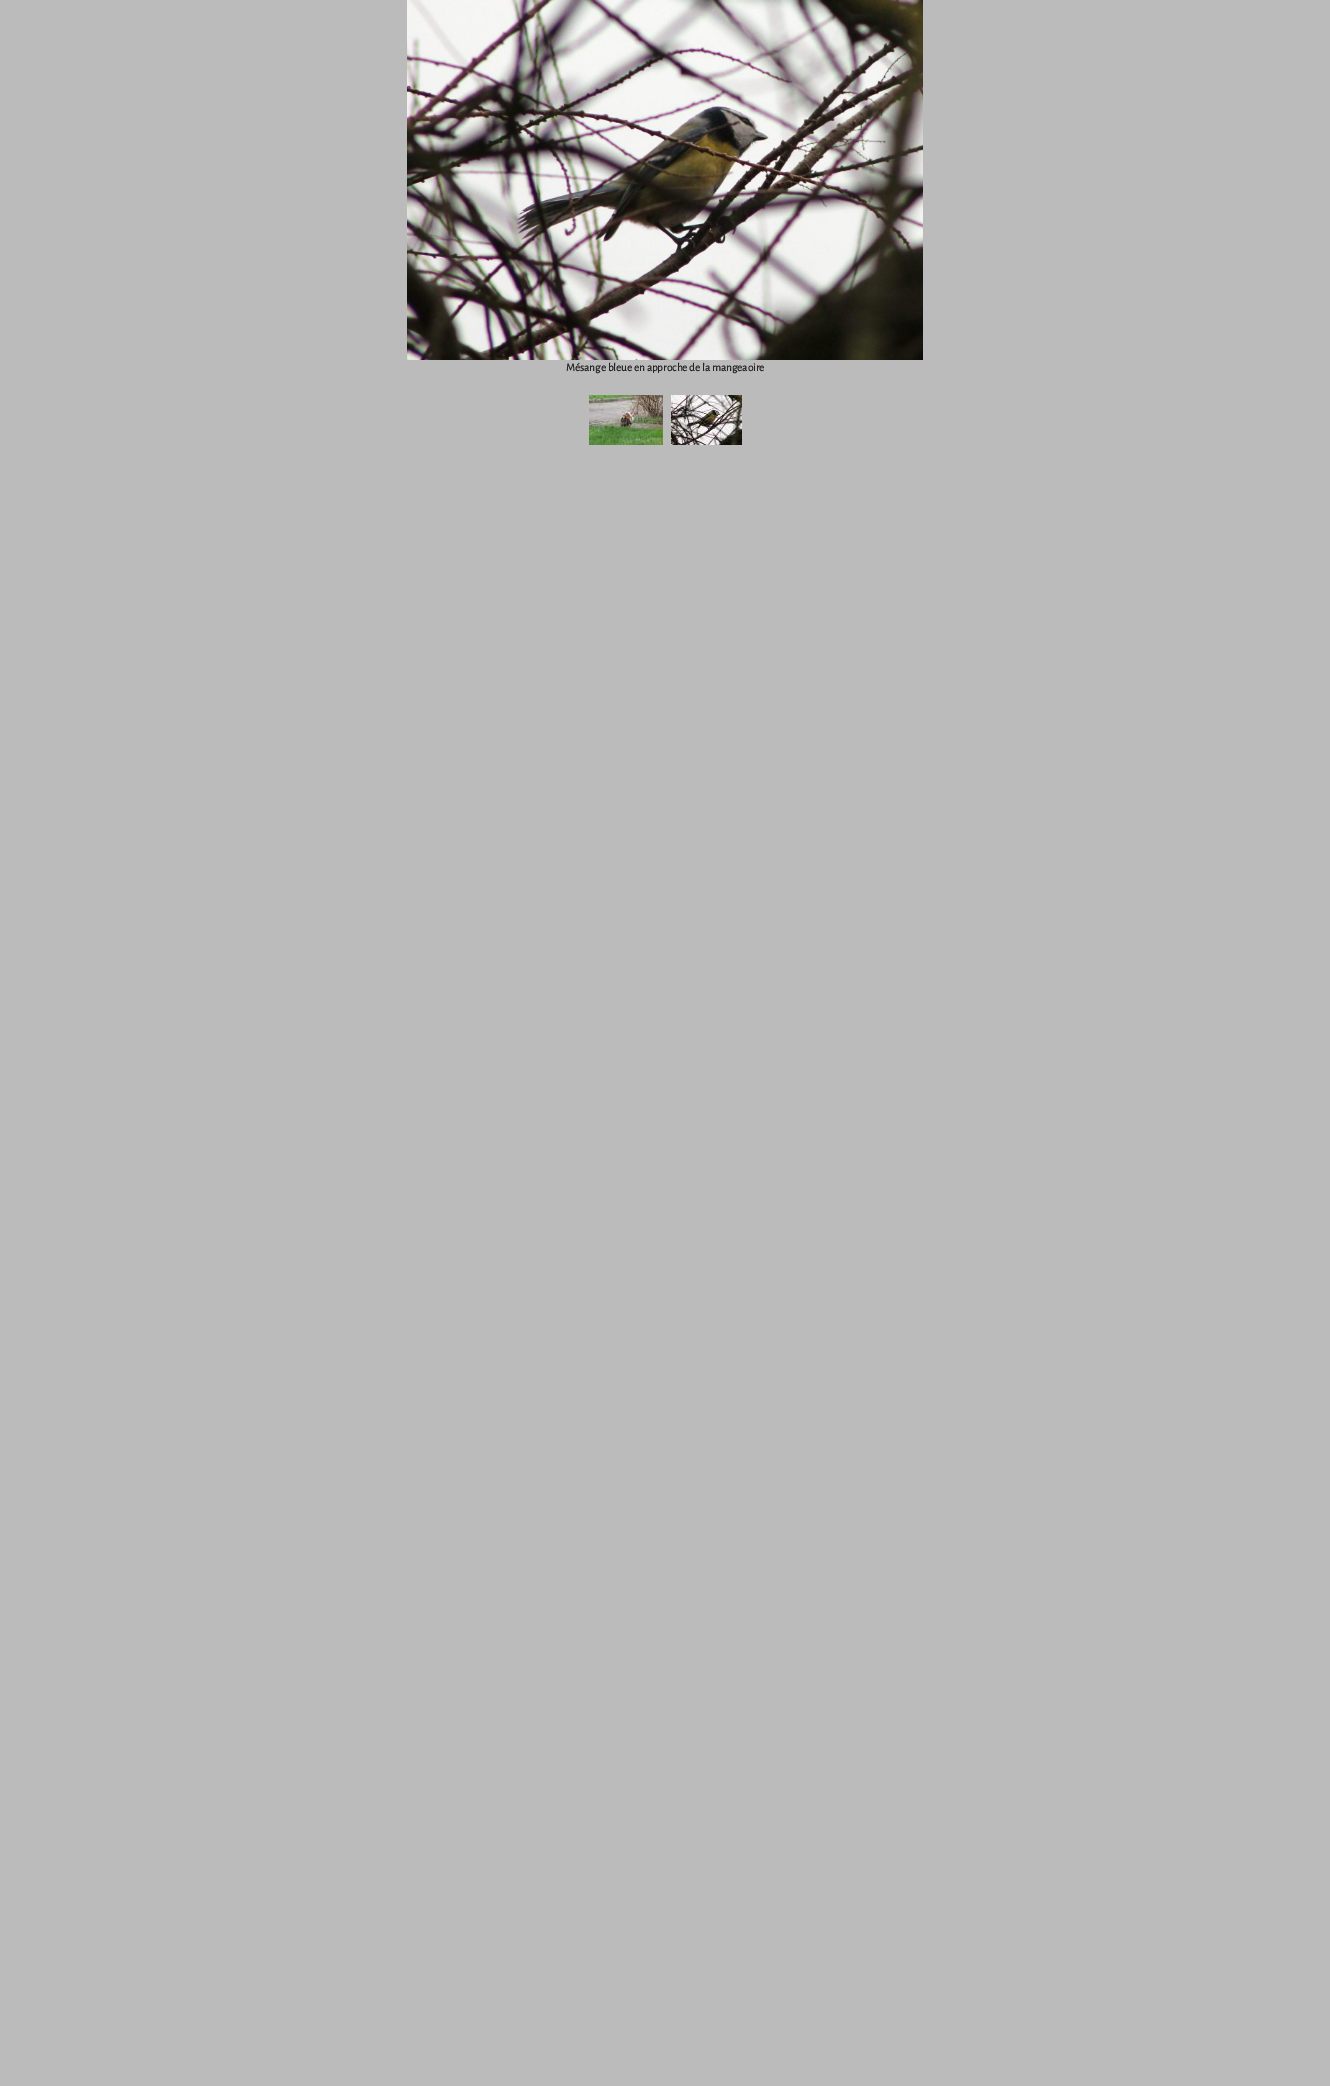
%!PS
<< /PageSize [1330 2086] >> setpagedevice
/rgb { 3 { 255 div 3 1 roll } repeat setrgbcolor } def
/font { [ exch dup neg 0 0 3 -1 roll 0 0 ] selectfont } def
/picture { 5 dict begin { /h /w /y /x /name } { exch def } forall
  gsave x y translate w h scale
  w h 8 [w 0 0 h 0 0] name (r) file false 3 colorimage grestore end } def
0 2086 translate 1 -1 scale
4 setmiterlimit
187 187 187 rgb
0 0 1330 2086 rectfill
(img/1.rgb) 407 0 516 360 picture
(img/2.rgb) 589 395 74 50 picture
(img/3.rgb) 671 395 71 50 picture
/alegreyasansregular-Bold 11.25 font
37 37 37 rgb
566 371 moveto (Mésange bleue en approche de la mangeaoire) show
showpage
